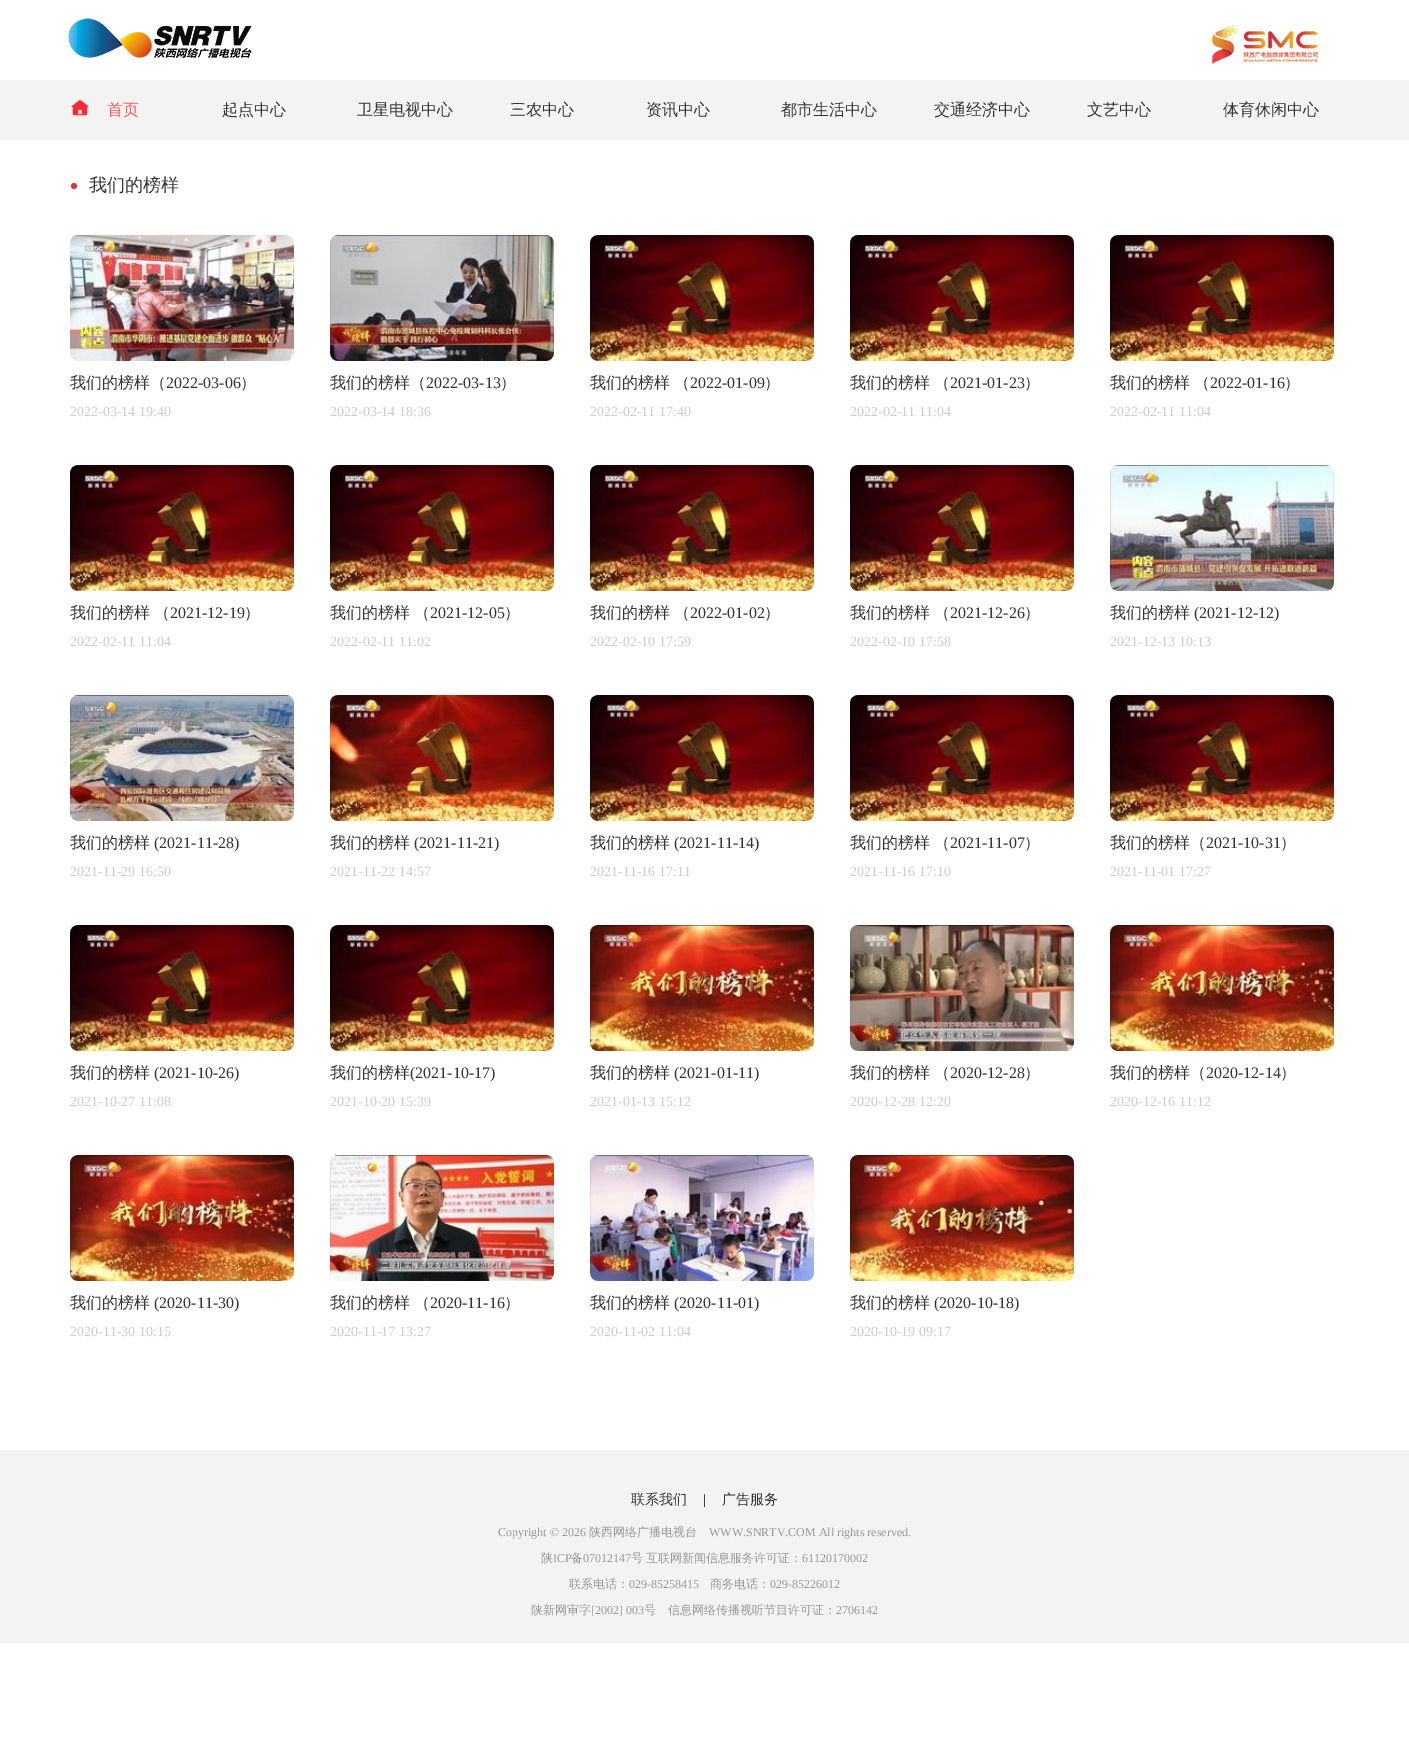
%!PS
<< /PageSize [1409 1757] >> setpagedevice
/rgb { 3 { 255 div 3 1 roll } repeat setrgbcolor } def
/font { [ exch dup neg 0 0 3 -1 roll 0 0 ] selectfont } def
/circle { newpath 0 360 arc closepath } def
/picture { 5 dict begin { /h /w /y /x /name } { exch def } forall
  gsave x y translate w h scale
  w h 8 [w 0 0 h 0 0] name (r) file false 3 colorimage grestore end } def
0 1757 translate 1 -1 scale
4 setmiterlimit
255 255 255 rgb
0 0 1409 1757 rectfill
(img/1.rgb) 68 18 184 40 picture
(img/2.rgb) 1212 25 106 39 picture
243 243 243 rgb
0 80 1409 60 rectfill
(img/3.rgb) 71 100 18 16 picture
241 45 55 rgb
74 186 3 circle fill
(img/4.rgb) 70 235 224 126 picture
(img/5.rgb) 330 235 224 126 picture
(img/6.rgb) 590 235 224 126 picture
(img/7.rgb) 850 235 224 126 picture
(img/8.rgb) 1110 235 224 126 picture
(img/9.rgb) 70 465 224 126 picture
(img/10.rgb) 330 465 224 126 picture
(img/11.rgb) 590 465 224 126 picture
(img/12.rgb) 850 465 224 126 picture
(img/13.rgb) 1110 465 224 126 picture
(img/14.rgb) 70 695 224 126 picture
(img/15.rgb) 330 695 224 126 picture
(img/16.rgb) 590 695 224 126 picture
(img/17.rgb) 850 695 224 126 picture
(img/18.rgb) 1110 695 224 126 picture
(img/19.rgb) 70 925 224 126 picture
(img/20.rgb) 330 925 224 126 picture
(img/21.rgb) 590 925 224 126 picture
(img/22.rgb) 850 925 224 126 picture
(img/23.rgb) 1110 925 224 126 picture
(img/24.rgb) 70 1155 224 126 picture
(img/25.rgb) 330 1155 224 126 picture
(img/26.rgb) 590 1155 224 126 picture
(img/27.rgb) 850 1155 224 126 picture
243 243 243 rgb
0 1450 1409 193 rectfill
/WenQuanYiZenHei-Medium 16 font
255 89 92 rgb
107 115 moveto (首页) show
51 51 51 rgb
[
  [(起点中心) 222 115]
  [(卫星电视中心) 357 115]
  [(三农中心) 510 115]
  [(资讯中心) 646 115]
  [(都市生活中心) 781 115]
  [(交通经济中心) 934 115]
  [(文艺中心) 1087 115]
  [(体育休闲中心) 1223 115]
] { aload pop moveto show } forall
/WenQuanYiZenHei-Medium 18 font
89 191 moveto (我们的榜样) show
/WenQuanYiZenHei-Medium 16 font
70 388 moveto (我们的榜样（) show
/LiberationSerif-Regular 16 font
166 388 moveto (2022-03-06) show
/WenQuanYiZenHei-Medium 16 font
240 388 moveto (）) show
/LiberationSerif-Regular 14 font
204 204 204 rgb
70 416 moveto (2022-03-14 19:40) show
/WenQuanYiZenHei-Medium 16 font
51 51 51 rgb
330 388 moveto (我们的榜样（) show
/LiberationSerif-Regular 16 font
426 388 moveto (2022-03-13) show
/WenQuanYiZenHei-Medium 16 font
500 388 moveto (）) show
/LiberationSerif-Regular 14 font
204 204 204 rgb
330 416 moveto (2022-03-14 18:36) show
/WenQuanYiZenHei-Medium 16 font
51 51 51 rgb
590 388 moveto -1 0 32 (我们的榜样 （) widthshow
/LiberationSerif-Regular 16 font
690 388 moveto (2022-01-09) show
/WenQuanYiZenHei-Medium 16 font
764 388 moveto (）) show
/LiberationSerif-Regular 14 font
204 204 204 rgb
590 416 moveto (2022-02-11 17:40) show
/WenQuanYiZenHei-Medium 16 font
51 51 51 rgb
850 388 moveto -1 0 32 (我们的榜样 （) widthshow
/LiberationSerif-Regular 16 font
950 388 moveto (2021-01-23) show
/WenQuanYiZenHei-Medium 16 font
1024 388 moveto (）) show
/LiberationSerif-Regular 14 font
204 204 204 rgb
850 416 moveto (2022-02-11 11:04) show
/WenQuanYiZenHei-Medium 16 font
51 51 51 rgb
1110 388 moveto -1 0 32 (我们的榜样 （) widthshow
/LiberationSerif-Regular 16 font
1210 388 moveto (2022-01-16) show
/WenQuanYiZenHei-Medium 16 font
1284 388 moveto (）) show
/LiberationSerif-Regular 14 font
204 204 204 rgb
1110 416 moveto (2022-02-11 11:04) show
/WenQuanYiZenHei-Medium 16 font
51 51 51 rgb
70 618 moveto -1 0 32 (我们的榜样 （) widthshow
/LiberationSerif-Regular 16 font
170 618 moveto (2021-12-19) show
/WenQuanYiZenHei-Medium 16 font
244 618 moveto (）) show
/LiberationSerif-Regular 14 font
204 204 204 rgb
70 646 moveto (2022-02-11 11:04) show
/WenQuanYiZenHei-Medium 16 font
51 51 51 rgb
330 618 moveto -1 0 32 (我们的榜样 （) widthshow
/LiberationSerif-Regular 16 font
430 618 moveto (2021-12-05) show
/WenQuanYiZenHei-Medium 16 font
504 618 moveto (）) show
/LiberationSerif-Regular 14 font
204 204 204 rgb
330 646 moveto (2022-02-11 11:02) show
/WenQuanYiZenHei-Medium 16 font
51 51 51 rgb
590 618 moveto -1 0 32 (我们的榜样 （) widthshow
/LiberationSerif-Regular 16 font
690 618 moveto (2022-01-02) show
/WenQuanYiZenHei-Medium 16 font
764 618 moveto (）) show
/LiberationSerif-Regular 14 font
204 204 204 rgb
590 646 moveto (2022-02-10 17:59) show
/WenQuanYiZenHei-Medium 16 font
51 51 51 rgb
850 618 moveto -1 0 32 (我们的榜样 （) widthshow
/LiberationSerif-Regular 16 font
950 618 moveto (2021-12-26) show
/WenQuanYiZenHei-Medium 16 font
1024 618 moveto (）) show
/LiberationSerif-Regular 14 font
204 204 204 rgb
850 646 moveto (2022-02-10 17:58) show
/WenQuanYiZenHei-Medium 16 font
51 51 51 rgb
1110 618 moveto (我们的榜样) show
/LiberationSerif-Regular 16 font
1194 618 moveto (\(2021-12-12\)) show
/LiberationSerif-Regular 14 font
204 204 204 rgb
1110 646 moveto (2021-12-13 10:13) show
/WenQuanYiZenHei-Medium 16 font
51 51 51 rgb
70 848 moveto (我们的榜样) show
/LiberationSerif-Regular 16 font
154 848 moveto (\(2021-11-28\)) show
/LiberationSerif-Regular 14 font
204 204 204 rgb
70 876 moveto (2021-11-29 16:50) show
/WenQuanYiZenHei-Medium 16 font
51 51 51 rgb
330 848 moveto (我们的榜样) show
/LiberationSerif-Regular 16 font
414 848 moveto (\(2021-11-21\)) show
/LiberationSerif-Regular 14 font
204 204 204 rgb
330 876 moveto (2021-11-22 14:57) show
/WenQuanYiZenHei-Medium 16 font
51 51 51 rgb
590 848 moveto (我们的榜样) show
/LiberationSerif-Regular 16 font
674 848 moveto (\(2021-11-14\)) show
/LiberationSerif-Regular 14 font
204 204 204 rgb
590 876 moveto (2021-11-16 17:11) show
/WenQuanYiZenHei-Medium 16 font
51 51 51 rgb
850 848 moveto -1 0 32 (我们的榜样 （) widthshow
/LiberationSerif-Regular 16 font
950 848 moveto (2021-11-07) show
/WenQuanYiZenHei-Medium 16 font
1024 848 moveto (）) show
/LiberationSerif-Regular 14 font
204 204 204 rgb
850 876 moveto (2021-11-16 17:10) show
/WenQuanYiZenHei-Medium 16 font
51 51 51 rgb
1110 848 moveto (我们的榜样（) show
/LiberationSerif-Regular 16 font
1206 848 moveto (2021-10-31) show
/WenQuanYiZenHei-Medium 16 font
1280 848 moveto (）) show
/LiberationSerif-Regular 14 font
204 204 204 rgb
1110 876 moveto (2021-11-01 17:27) show
/WenQuanYiZenHei-Medium 16 font
51 51 51 rgb
70 1078 moveto (我们的榜样) show
/LiberationSerif-Regular 16 font
154 1078 moveto (\(2021-10-26\)) show
/LiberationSerif-Regular 14 font
204 204 204 rgb
70 1106 moveto (2021-10-27 11:08) show
/WenQuanYiZenHei-Medium 16 font
51 51 51 rgb
330 1078 moveto (我们的榜样) show
/LiberationSerif-Regular 16 font
410 1078 moveto (\(2021-10-17\)) show
/LiberationSerif-Regular 14 font
204 204 204 rgb
330 1106 moveto (2021-10-20 15:39) show
/WenQuanYiZenHei-Medium 16 font
51 51 51 rgb
590 1078 moveto (我们的榜样) show
/LiberationSerif-Regular 16 font
674 1078 moveto (\(2021-01-11\)) show
/LiberationSerif-Regular 14 font
204 204 204 rgb
590 1106 moveto (2021-01-13 15:12) show
/WenQuanYiZenHei-Medium 16 font
51 51 51 rgb
850 1078 moveto -1 0 32 (我们的榜样 （) widthshow
/LiberationSerif-Regular 16 font
950 1078 moveto (2020-12-28) show
/WenQuanYiZenHei-Medium 16 font
1024 1078 moveto (）) show
/LiberationSerif-Regular 14 font
204 204 204 rgb
850 1106 moveto (2020-12-28 12:20) show
/WenQuanYiZenHei-Medium 16 font
51 51 51 rgb
1110 1078 moveto (我们的榜样（) show
/LiberationSerif-Regular 16 font
1206 1078 moveto (2020-12-14) show
/WenQuanYiZenHei-Medium 16 font
1280 1078 moveto (）) show
/LiberationSerif-Regular 14 font
204 204 204 rgb
1110 1106 moveto (2020-12-16 11:12) show
/WenQuanYiZenHei-Medium 16 font
51 51 51 rgb
70 1308 moveto (我们的榜样) show
/LiberationSerif-Regular 16 font
154 1308 moveto (\(2020-11-30\)) show
/LiberationSerif-Regular 14 font
204 204 204 rgb
70 1336 moveto (2020-11-30 10:15) show
/WenQuanYiZenHei-Medium 16 font
51 51 51 rgb
330 1308 moveto -1 0 32 (我们的榜样 （) widthshow
/LiberationSerif-Regular 16 font
430 1308 moveto (2020-11-16) show
/WenQuanYiZenHei-Medium 16 font
504 1308 moveto (）) show
/LiberationSerif-Regular 14 font
204 204 204 rgb
330 1336 moveto (2020-11-17 13:27) show
/WenQuanYiZenHei-Medium 16 font
51 51 51 rgb
590 1308 moveto (我们的榜样) show
/LiberationSerif-Regular 16 font
674 1308 moveto (\(2020-11-01\)) show
/LiberationSerif-Regular 14 font
204 204 204 rgb
590 1336 moveto (2020-11-02 11:04) show
/WenQuanYiZenHei-Medium 16 font
51 51 51 rgb
850 1308 moveto (我们的榜样) show
/LiberationSerif-Regular 16 font
934 1308 moveto (\(2020-10-18\)) show
/LiberationSerif-Regular 14 font
204 204 204 rgb
850 1336 moveto (2020-10-19 09:17) show
/WenQuanYiZenHei-Medium 14 font
51 51 51 rgb
631 1504 moveto (联系我们) show
/LiberationSerif-Regular 14 font
0 0 0 rgb
703 1504 moveto (|) show
/WenQuanYiZenHei-Medium 14 font
51 51 51 rgb
722 1504 moveto (广告服务) show
/LiberationSerif-Regular 12 font
153 153 153 rgb
498 1536 moveto (Copyright © 2026) show
/WenQuanYiZenHei-Medium 12 font
589 1536 moveto (陕西网络广播电视台) show
/LiberationSerif-Regular 12 font
709 1536 moveto (WWW.SNRTV.COM All rights reserved.) show
/WenQuanYiZenHei-Medium 12 font
541 1562 moveto (陕) show
/LiberationSerif-Regular 12 font
553 1562 moveto (ICP) show
/WenQuanYiZenHei-Medium 12 font
571 1562 moveto (备) show
/LiberationSerif-Regular 12 font
583 1562 moveto (07012147) show
/WenQuanYiZenHei-Medium 12 font
631 1562 moveto -1 0 32 (号 互联网新闻信息服务许可证：) widthshow
/LiberationSerif-Regular 12 font
802 1562 moveto (61120170002) show
/WenQuanYiZenHei-Medium 12 font
569 1588 moveto (联系电话：) show
/LiberationSerif-Regular 12 font
629 1588 moveto (029-85258415) show
/WenQuanYiZenHei-Medium 12 font
710 1588 moveto (商务电话：) show
/LiberationSerif-Regular 12 font
770 1588 moveto (029-85226012) show
/WenQuanYiZenHei-Medium 12 font
531 1614 moveto (陕新网审字) show
/LiberationSerif-Regular 12 font
591 1614 moveto ([2002] 003) show
/WenQuanYiZenHei-Medium 12 font
644 1614 moveto (号　信息网络传播视听节目许可证：) show
/LiberationSerif-Regular 12 font
836 1614 moveto (2706142) show
showpage
